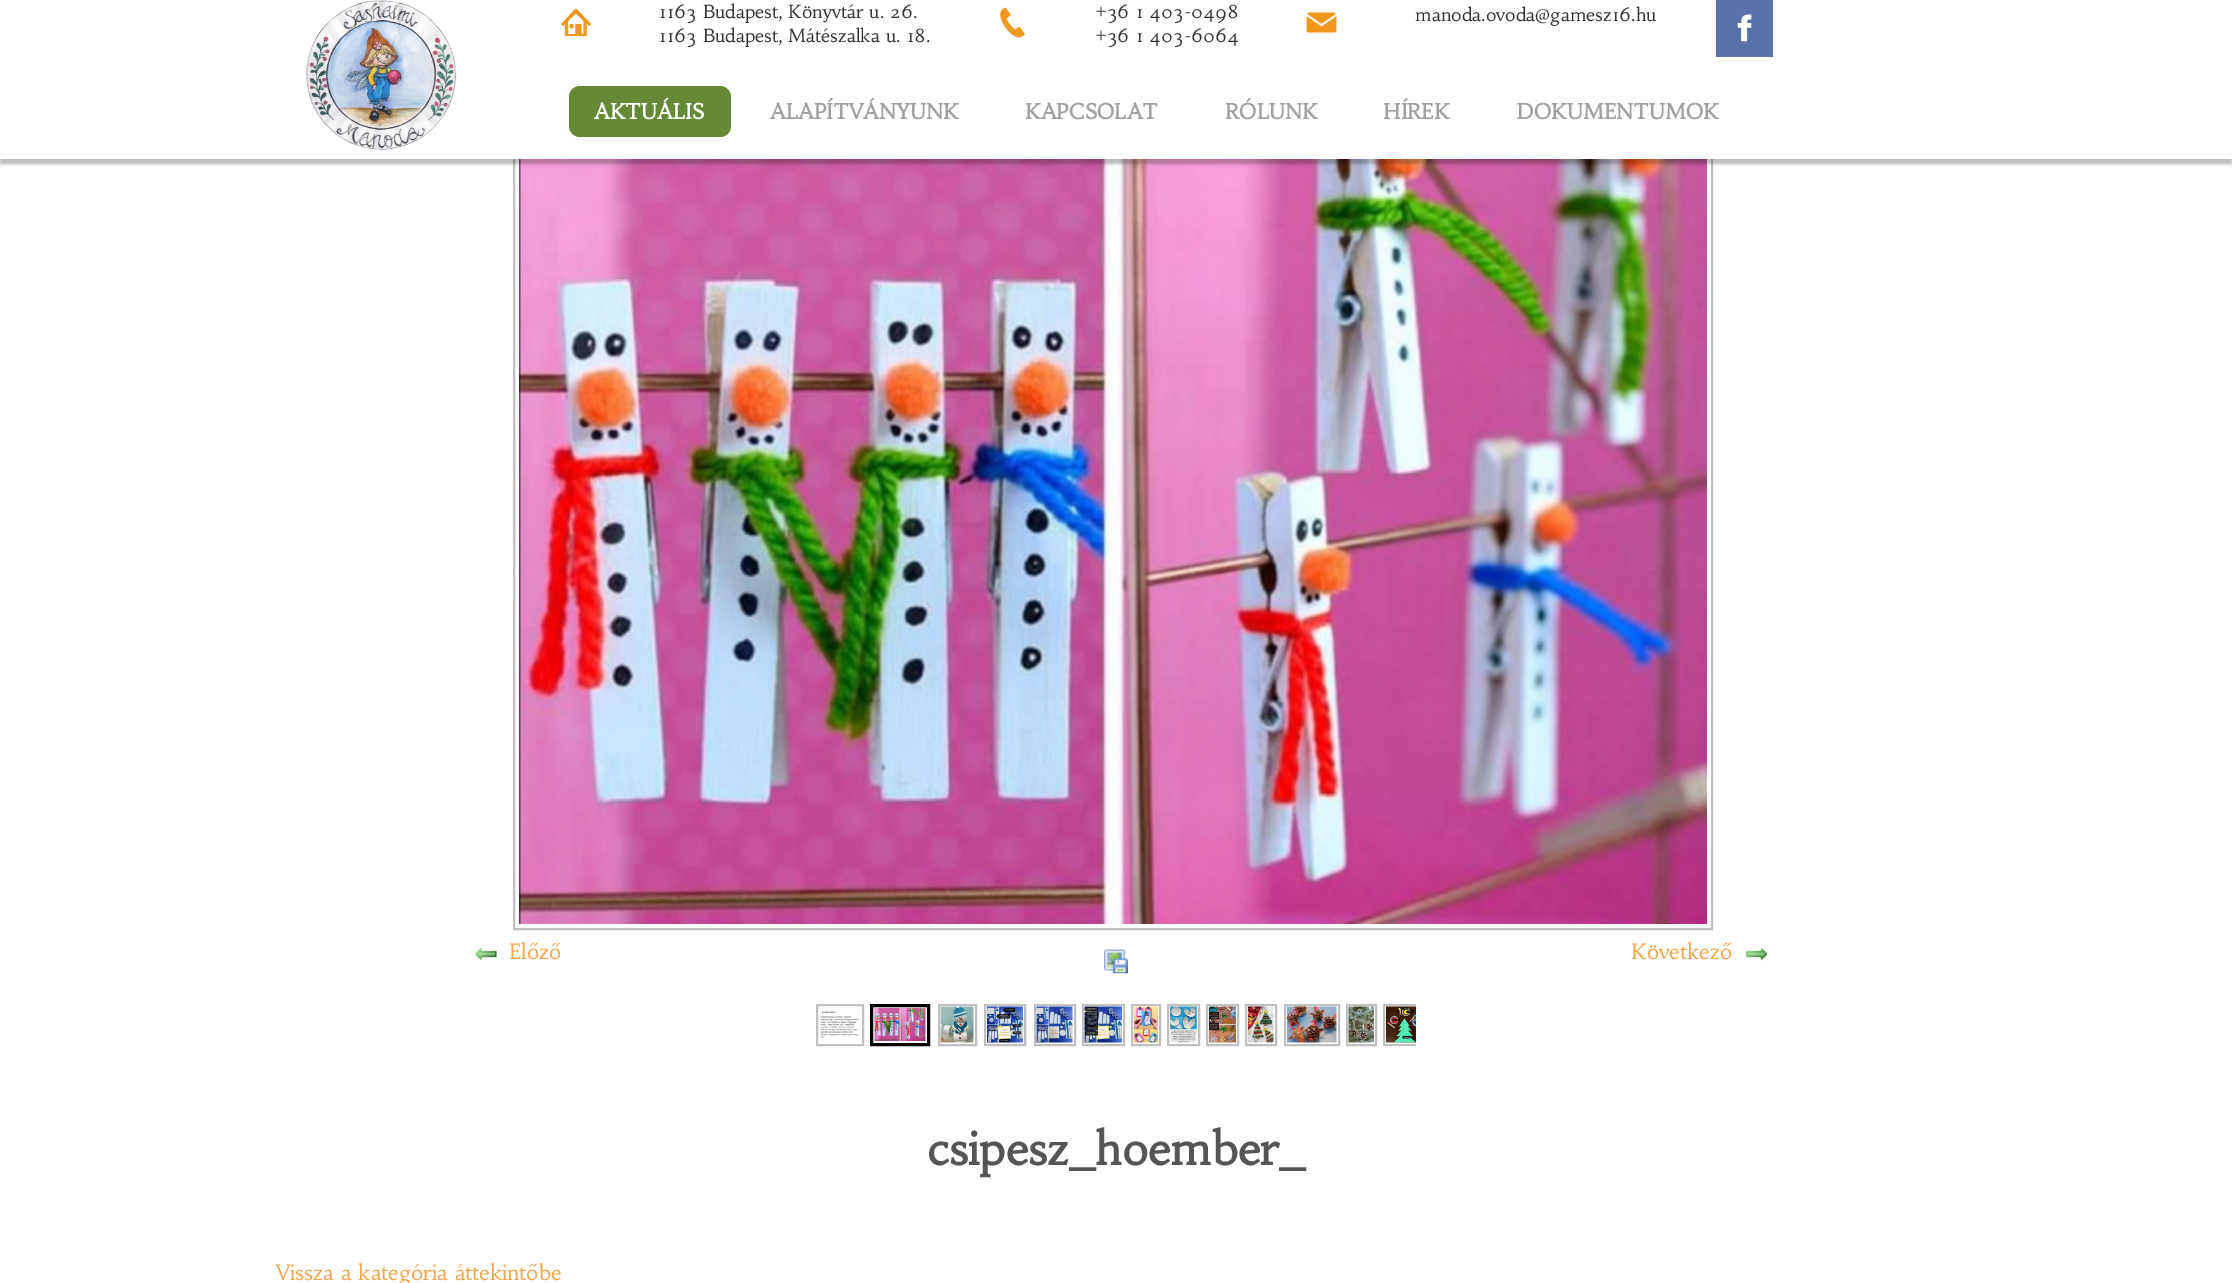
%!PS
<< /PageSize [2232 1283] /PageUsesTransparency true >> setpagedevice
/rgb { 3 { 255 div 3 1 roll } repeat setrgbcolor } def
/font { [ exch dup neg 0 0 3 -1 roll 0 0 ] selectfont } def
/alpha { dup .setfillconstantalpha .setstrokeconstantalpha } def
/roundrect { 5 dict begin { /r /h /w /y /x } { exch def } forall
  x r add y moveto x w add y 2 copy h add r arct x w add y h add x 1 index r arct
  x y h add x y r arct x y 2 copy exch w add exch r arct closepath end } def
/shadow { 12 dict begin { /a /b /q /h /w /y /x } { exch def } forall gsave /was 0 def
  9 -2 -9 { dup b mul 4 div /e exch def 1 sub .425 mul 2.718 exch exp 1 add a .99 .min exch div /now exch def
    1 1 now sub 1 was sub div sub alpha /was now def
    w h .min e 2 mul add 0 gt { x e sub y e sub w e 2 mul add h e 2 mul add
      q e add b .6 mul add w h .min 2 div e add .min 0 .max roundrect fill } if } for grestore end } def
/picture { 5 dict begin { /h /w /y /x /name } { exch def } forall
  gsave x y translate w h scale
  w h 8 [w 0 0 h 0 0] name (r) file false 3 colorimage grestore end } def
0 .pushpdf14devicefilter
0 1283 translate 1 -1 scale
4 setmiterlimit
255 255 255 rgb
0 0 2232 1283 rectfill
192 192 192 rgb
2 setlinewidth
514 151 1198 778 rectstroke
(img/6.rgb) 519 159 1188 765 picture
0 0 0 rgb
0 5 2232 159 0 1.5 0.25 shadow
255 255 255 rgb
0 2 2232 157 rectfill
(img/1.rgb) 306 0 151 150 picture
(img/2.rgb) 561 8 30 29 picture
(img/3.rgb) 1000 7 25 31 picture
(img/4.rgb) 1306 12 31 21 picture
88 113 167 rgb
1716 0 57 57 rectfill
(img/5.rgb) 1737 14 15 28 picture
101 137 52 rgb
569 86 162 51 11 roundrect fill
(img/7.rgb) 475 947 22 14 picture
(img/8.rgb) 1104 949 24 25 picture
(img/9.rgb) 1745 947 23 14 picture
192 192 192 rgb
817 1005 46 40 rectstroke
(img/10.rgb) 820 1011 39 27 picture
0 0 0 rgb
3 setlinewidth
871.5 1005.5 57 39 rectstroke
(img/11.rgb) 874 1008 52 33 picture
192 192 192 rgb
2 setlinewidth
939 1005 37 40 rectstroke
(img/12.rgb) 940 1006 34 37 picture
985 1005 40 40 rectstroke
(img/13.rgb) 987 1006 36 37 picture
1035 1005 40 40 rectstroke
(img/14.rgb) 1036 1006 37 37 picture
1083 1005 41 40 rectstroke
(img/15.rgb) 1084 1006 38 37 picture
1132 1005 28 40 rectstroke
(img/16.rgb) 1134 1006 24 37 picture
1168 1005 31 40 rectstroke
(img/17.rgb) 1170 1006 27 37 picture
1207 1005 31 40 rectstroke
(img/18.rgb) 1209 1006 27 37 picture
1246 1005 30 40 rectstroke
(img/19.rgb) 1248 1006 26 37 picture
1285 1005 54 40 rectstroke
(img/20.rgb) 1287 1006 50 37 picture
1347 1005 29 40 rectstroke
(img/21.rgb) 1348 1006 26 37 picture
gsave
816 1004 600 42 rectclip
1384 1005 40 40 rectstroke
grestore
(img/22.rgb) 1386 1006 30 37 picture
/Habibi-Regular 18 font
51 51 51 rgb
[
  [(1163 Budapest, Könyvtár u. 26.) 659 18]
  [(1163 Budapest, Mátészalka u. 18.) 659 42]
  [(+36 1 403-0498) 1095 18]
  [(+36 1 403-6064) 1095 42]
  [(manoda.ovoda@gamesz16.hu) 1415 21]
] { aload pop moveto show } forall
/Habibi-Bold 21 font
255 255 255 rgb
594 119 moveto (AKTUÁLIS) show
161 161 161 rgb
[
  [(ALAPÍTVÁNYUNK) 770 119]
  [(KAPCSOLAT) 1025 119]
  [(RÓLUNK) 1225 119]
  [(HÍREK) 1383 119]
  [(DOKUMENTUMOK) 1516 119]
] { aload pop moveto show } forall
/Habibi-Regular 21 font
243 164 73 rgb
509 959 moveto (Előző) show
1631 959 moveto (Következő) show
/Habibi-Bold 45 font
85 85 85 rgb
927 1165 moveto (csipesz_hoember_) show
/Habibi-Regular 21 font
243 164 73 rgb
276 1280 moveto (Vissza a kategória áttekintőbe) show
.poppdf14devicefilter showpage
